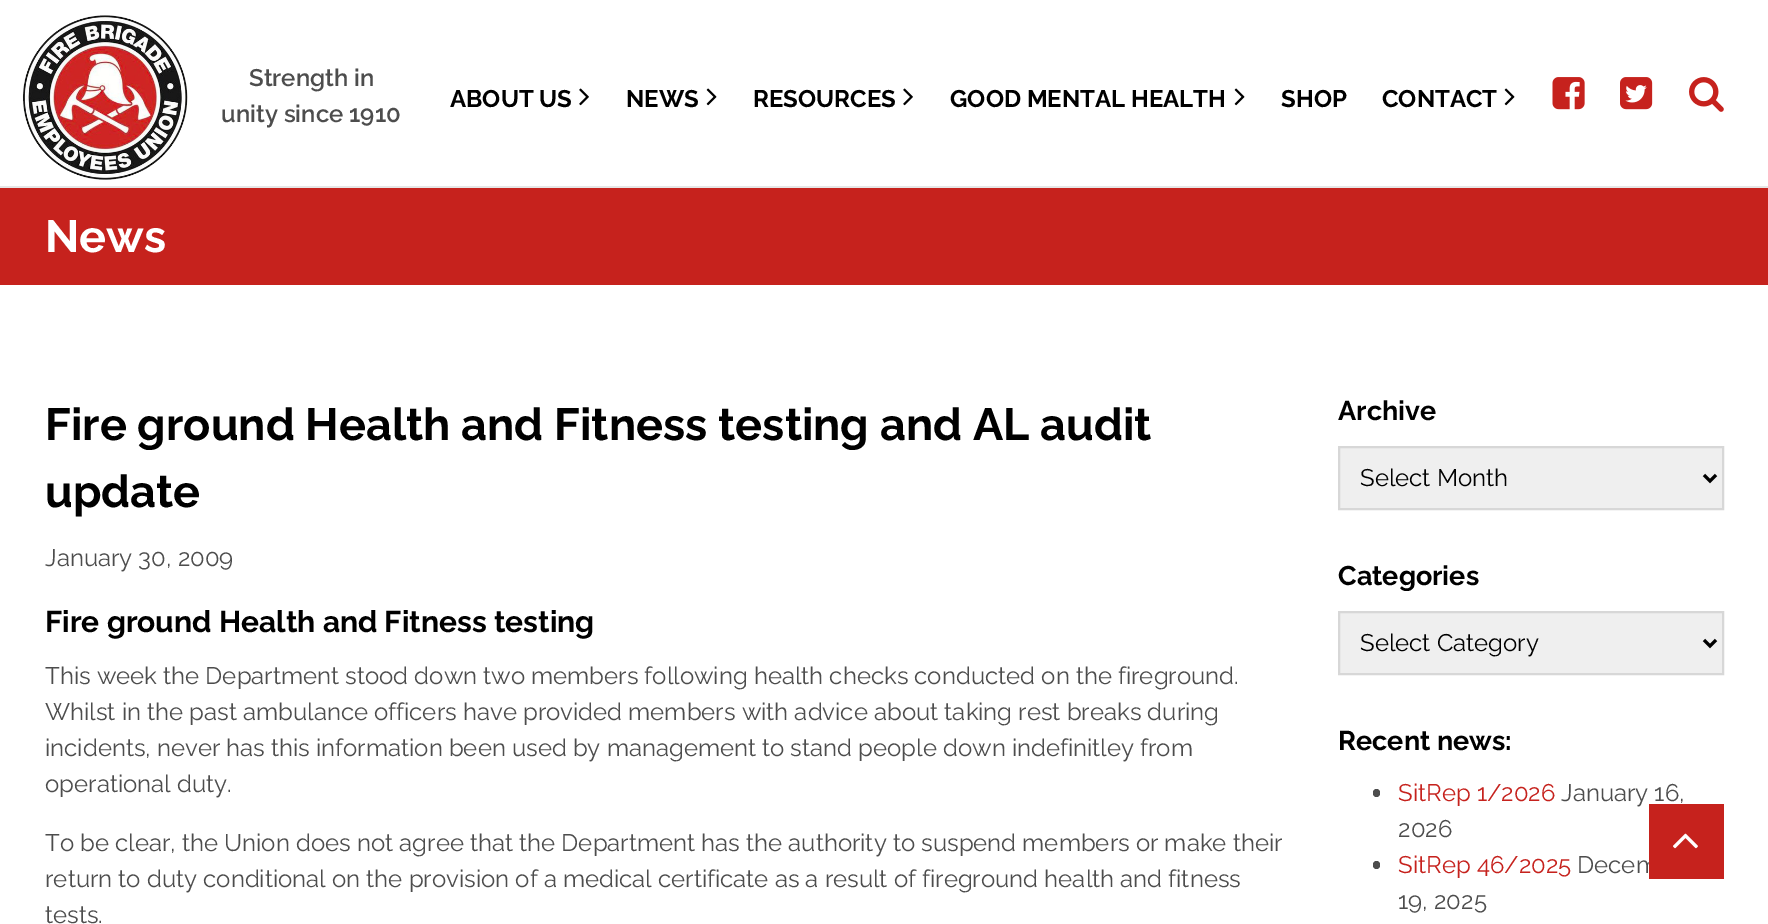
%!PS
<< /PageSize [1768 924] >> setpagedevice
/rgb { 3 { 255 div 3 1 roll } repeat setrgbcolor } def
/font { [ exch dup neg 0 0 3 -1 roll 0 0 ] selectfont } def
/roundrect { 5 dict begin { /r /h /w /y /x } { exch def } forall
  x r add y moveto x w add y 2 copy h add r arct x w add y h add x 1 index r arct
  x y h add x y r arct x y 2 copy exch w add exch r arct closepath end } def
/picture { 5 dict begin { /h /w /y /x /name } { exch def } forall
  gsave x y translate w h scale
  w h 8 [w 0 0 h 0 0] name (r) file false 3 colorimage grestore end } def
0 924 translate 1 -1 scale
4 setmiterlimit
255 255 255 rgb
0 0 1768 924 rectfill
230 230 230 rgb
0 186 1768 2 rectfill
(img/1.rgb) 22 15 166 165 picture
(img/2.rgb) 579 88 10 18 picture
(img/3.rgb) 706 88 11 18 picture
(img/2.rgb) 903 88 10 18 picture
(img/3.rgb) 1234 88 11 18 picture
(img/3.rgb) 1504 88 11 18 picture
(img/4.rgb) 1552 77 33 33 picture
(img/5.rgb) 1620 77 33 33 picture
(img/6.rgb) 1689 77 35 35 picture
198 34 29 rgb
0 188 1768 97 rectfill
239 239 239 rgb
1339 447 moveto 1723 447 lineto 1723 509 lineto 1339 509 lineto closepath gsave fill grestore
215 215 215 rgb
2 setlinewidth
stroke
0 0 0 rgb
3 setlinewidth
1704 475 moveto 1710 481 lineto 1716 475 lineto stroke
239 239 239 rgb
1339 612 moveto 1723 612 lineto 1723 674 lineto 1339 674 lineto closepath gsave fill grestore
215 215 215 rgb
2 setlinewidth
stroke
0 0 0 rgb
3 setlinewidth
1704 640 moveto 1710 646 lineto 1716 640 lineto stroke
77 77 77 rgb
1373 789 7 8 3.5 roundrect fill
1373 861 7 8 3.5 roundrect fill
/Raleway-SemiBold 24 font
249 86 moveto (Strength in) show
221 122 moveto (unity since 1910) show
/Raleway-Bold 24 font
0 0 0 rgb
[
  [(ABOUT US) 450 107]
  [(NEWS) 626 107]
  [(RESOURCES) 753 107]
  [(GOOD MENTAL HEALTH) 950 107]
  [(SHOP) 1281 107]
  [(CONTACT) 1382 107]
] { aload pop moveto show } forall
/Raleway-Bold 45 font
255 255 255 rgb
45 252 moveto (News) show
0 0 0 rgb
45 440 moveto (Fire ground Health and Fitness testing and AL audit) show
45 507 moveto (update) show
/Raleway-Regular 24 font
77 77 77 rgb
45 566 moveto (January 30, 2009) show
/Raleway-Bold 30 font
0 0 0 rgb
45 632 moveto (Fire ground Health and Fitness testing) show
/Raleway-Regular 24 font
77 77 77 rgb
[
  [(This week the Department stood down two members following health checks conducted on the fireground.) 45 684]
  [(Whilst in the past ambulance officers have provided members with advice about taking rest breaks during) 45 720]
  [(incidents, never has this information been used by management to stand people down indefinitley from) 45 756]
  [(operational duty.) 45 792]
  [(To be clear, the Union does not agree that the Department has the authority to suspend members or make their) 45 851]
  [(return to duty conditional on the provision of a medical certificate as a result of fireground health and fitness) 45 887]
  [(tests.) 45 923]
] { aload pop moveto show } forall
/Raleway-Bold 27 font
0 0 0 rgb
1338 420 moveto (Archive) show
/Raleway-Regular 24 font
1360 486 moveto (Select Month) show
/Raleway-Bold 27 font
1338 585 moveto (Categories) show
/Raleway-Regular 24 font
1360 651 moveto (Select Category) show
/Raleway-Bold 27 font
1338 750 moveto (Recent news:) show
/Raleway-Regular 24 font
198 34 29 rgb
1398 801 moveto (SitRep 1/2026) show
77 77 77 rgb
1561 801 moveto (January 16,) show
1398 837 moveto (2026) show
198 34 29 rgb
1398 873 moveto (SitRep 46/2025) show
77 77 77 rgb
1577 873 moveto (Decem) show
1398 909 moveto (19, 2025) show
198 34 29 rgb
1649 804 75 75 rectfill
(img/7.rgb) 1673 833 25 16 picture
showpage
